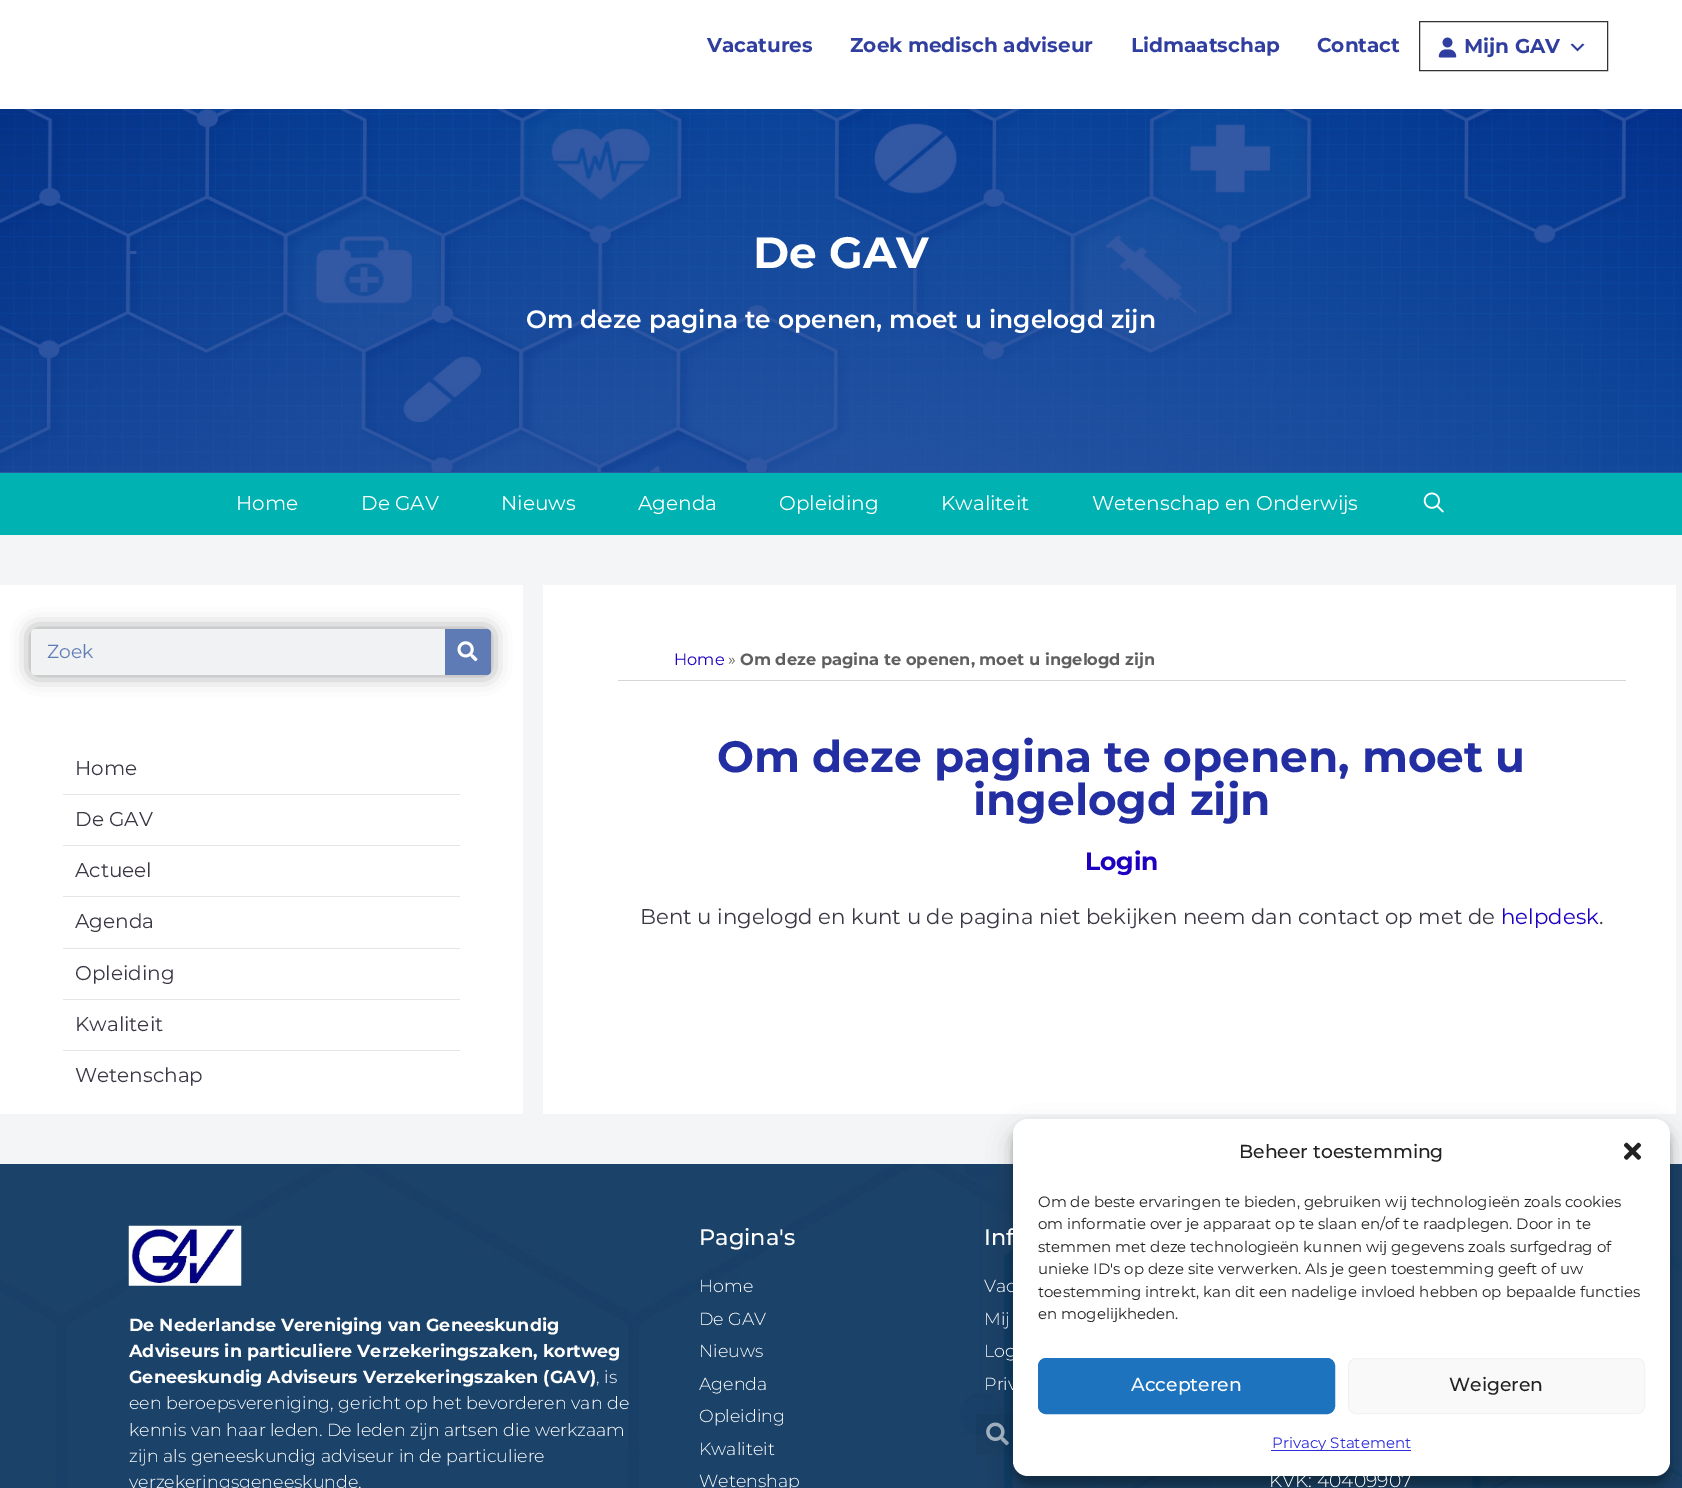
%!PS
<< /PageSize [1682 1488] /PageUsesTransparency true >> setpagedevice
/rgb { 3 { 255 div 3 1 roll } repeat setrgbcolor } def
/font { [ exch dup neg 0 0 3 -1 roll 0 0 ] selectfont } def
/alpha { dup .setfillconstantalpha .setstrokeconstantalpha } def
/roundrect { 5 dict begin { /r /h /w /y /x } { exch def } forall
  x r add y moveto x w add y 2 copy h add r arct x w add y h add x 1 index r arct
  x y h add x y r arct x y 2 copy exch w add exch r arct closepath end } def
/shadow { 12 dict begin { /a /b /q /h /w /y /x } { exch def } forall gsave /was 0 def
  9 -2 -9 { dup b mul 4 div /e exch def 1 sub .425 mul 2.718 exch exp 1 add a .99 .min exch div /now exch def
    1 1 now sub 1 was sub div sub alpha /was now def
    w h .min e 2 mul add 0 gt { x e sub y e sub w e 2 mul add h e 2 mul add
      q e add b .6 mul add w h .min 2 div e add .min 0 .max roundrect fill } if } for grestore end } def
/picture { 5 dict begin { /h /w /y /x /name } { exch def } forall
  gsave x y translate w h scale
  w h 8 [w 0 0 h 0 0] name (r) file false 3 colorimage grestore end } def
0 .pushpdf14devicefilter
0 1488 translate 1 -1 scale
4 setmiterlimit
243 245 247 rgb
0 0 1682 1488 rectfill
255 255 255 rgb
0 0 1682 109 rectfill
51 51 51 rgb
1419.5 21.5 188 49 rectstroke
(img/1.rgb) 1438 37 19 21 picture
(img/2.rgb) 1570 43 15 9 picture
48 87 163 rgb
0 472 1682 1 rectfill
(img/3.rgb) 0 109 1682 363 picture
0 178 178 rgb
0 473 1682 62 rectfill
(img/4.rgb) 1423 492 21 21 picture
255 255 255 rgb
0 585 523 529 rectfill
0 0 0 rgb
31 629 460 46 4 9.5 0.4 shadow
241 242 243 rgb
31 629 460 46 4 roundrect fill
0.61 alpha
0 47 142 rgb
445 629 moveto 487 629 lineto 489 629 491 631 491 633 curveto 491 671 lineto 491 673 489 675 487 675 curveto 445 675 lineto closepath fill
1 alpha
(img/5.rgb) 457 641 21 21 picture
[
  [63 794 397 1 228 229 229]
  [63 845 397 1 228 229 229]
  [63 896 397 1 228 229 229]
  [63 948 397 1 228 229 229]
  [63 999 397 1 228 229 229]
  [63 1050 397 1 228 229 229]
  [543 585 1133 529 255 255 255]
  [618 680 1008 1 214 214 214]
  [0 1164 1682 324 2 44 87]
] { aload pop rgb rectfill } forall
(img/7.rgb) 0 1163 1682 325 picture
0.05 alpha
0 0 0 rgb
976 1414 37 41 rectfill
1 alpha
(img/9.rgb) 986 1422 23 24 picture
1013 1126 657 358 15 4 0.23 shadow
1013 1131 657 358 15 12.5 0.19 shadow
255 255 255 rgb
1013 1119 657 357 15 roundrect fill
(img/6.rgb) 1623 1142 19 18 picture
30 115 190 rgb
1038.5 1358.5 296 55 7.5 roundrect gsave fill grestore
stroke
249 249 249 rgb
1348.5 1358.5 296 55 7.5 roundrect gsave fill grestore
242 242 242 rgb
stroke
44 44 216 rgb
1271 1450 140 1 rectfill
(img/8.rgb) 128 1225 114 61 picture
/Montserrat-Bold 20 font
48 63 159 rgb
[
  [(Vacatures) 707 52]
  [(Zoek medisch adviseur) 850 52]
  [(Lidmaatschap) 1131 52]
  [(Contact) 1317 52]
  [(Mijn GAV) 1464 53]
] { aload pop moveto show } forall
/Montserrat-Bold 43.75 font
255 255 255 rgb
753 268 moveto (De GAV) show
/Montserrat-SemiBold 25 font
526 328 moveto (Om deze pagina te openen, moet u ingelogd zijn) show
/Montserrat-Regular 20 font
[
  [(Home) 236 510]
  [(De GAV) 361 510]
  [(Nieuws) 501 510]
  [(Agenda) 638 510]
  [(Opleiding) 779 510]
  [(Kwaliteit) 941 510]
  [(Wetenschap en Onderwijs) 1092 510]
] { aload pop moveto show } forall
/Montserrat-Regular 18.75 font
96 125 182 rgb
47 658 moveto (Zoek) show
/Montserrat-Regular 20 font
60 55 68 rgb
[
  [(Home) 75 775]
  [(De GAV) 75 826]
  [(Actueel) 75 877]
  [(Agenda) 75 928]
  [(Opleiding) 75 980]
  [(Kwaliteit) 75 1031]
  [(Wetenschap) 75 1082]
] { aload pop moveto show } forall
/Montserrat-Regular 16.25 font
29 0 193 rgb
674 665 moveto (Home) show
95 95 95 rgb
728 665 moveto (») show
/Montserrat-Bold 16.25 font
740 665 moveto (Om deze pagina te openen, moet u ingelogd zijn) show
/Montserrat-Bold 43.75 font
35 46 162 rgb
717 772 moveto (Om deze pagina te openen, moet u) show
973 815 moveto (ingelogd zijn) show
/Montserrat-Bold 25 font
29 0 193 rgb
1085 870 moveto (Login) show
/Montserrat-Regular 21.25 font
60 55 68 rgb
640 924 moveto (Bent u ingelogd en kunt u de pagina niet bekijken neem dan contact op met de) show
29 0 193 rgb
1501 924 moveto (helpdesk) show
60 55 68 rgb
1599 924 moveto (.) show
/Montserrat-Medium 18.75 font
34 34 34 rgb
1239 1158 moveto (Beheer toestemming) show
/Montserrat-Regular 15 font
[
  [(Om de beste ervaringen te bieden, gebruiken wij technologieën zoals cookies) 1038 1207]
  [(om informatie over je apparaat op te slaan en/of te raadplegen. Door in te) 1038 1229]
  [(stemmen met deze technologieën kunnen wij gegevens zoals surfgedrag of) 1038 1252]
  [(unieke ID's op deze site verwerken. Als je geen toestemming geeft of uw) 1038 1274]
  [(toestemming intrekt, kan dit een nadelige invloed hebben op bepaalde functies) 1038 1297]
  [(en mogelijkheden.) 1038 1319]
] { aload pop moveto show } forall
/Montserrat-Medium 18.75 font
255 255 255 rgb
1131 1391 moveto (Accepteren) show
34 34 34 rgb
1449 1391 moveto (Weigeren) show
/Montserrat-Regular 15 font
44 44 216 rgb
1272 1448 moveto (Privacy Statement) show
/Montserrat-Bold 17.5 font
255 255 255 rgb
[
  [(De Nederlandse Vereniging van Geneeskundig) 129 1331]
  [(Adviseurs in particuliere Verzekeringszaken, kortweg) 129 1357]
  [(Geneeskundig Adviseurs Verzekeringszaken \(GAV\)) 129 1383]
] { aload pop moveto show } forall
/Montserrat-Light 17.5 font
[
  [(, is) 596 1383]
  [(een beroepsvereniging, gericht op het bevorderen van de) 129 1409]
  [(kennis van haar leden. De leden zijn artsen die werkzaam) 129 1436]
  [(zijn als geneeskundig adviseur in de particuliere) 129 1462]
  [(verzekeringsgeneeskunde.) 129 1488]
] { aload pop moveto show } forall
/Montserrat-Medium 22.5 font
699 1245 moveto (Pagina's) show
/Montserrat-Light 17.5 font
[
  [(Home) 699 1292]
  [(De GAV) 699 1325]
  [(Nieuws) 699 1357]
  [(Agenda) 699 1390]
  [(Opleiding) 699 1422]
  [(Kwaliteit) 699 1455]
  [(Wetenshap) 699 1487]
] { aload pop moveto show } forall
/Montserrat-Medium 22.5 font
984 1245 moveto (Inf) show
/Montserrat-Light 17.5 font
[
  [(Vac) 984 1292]
  [(Mij) 984 1325]
  [(Log) 984 1357]
  [(Priv) 984 1390]
] { aload pop moveto show } forall
/Montserrat-Light 18.75 font
1269 1487 moveto (KVK: 40409907) show
.poppdf14devicefilter showpage
